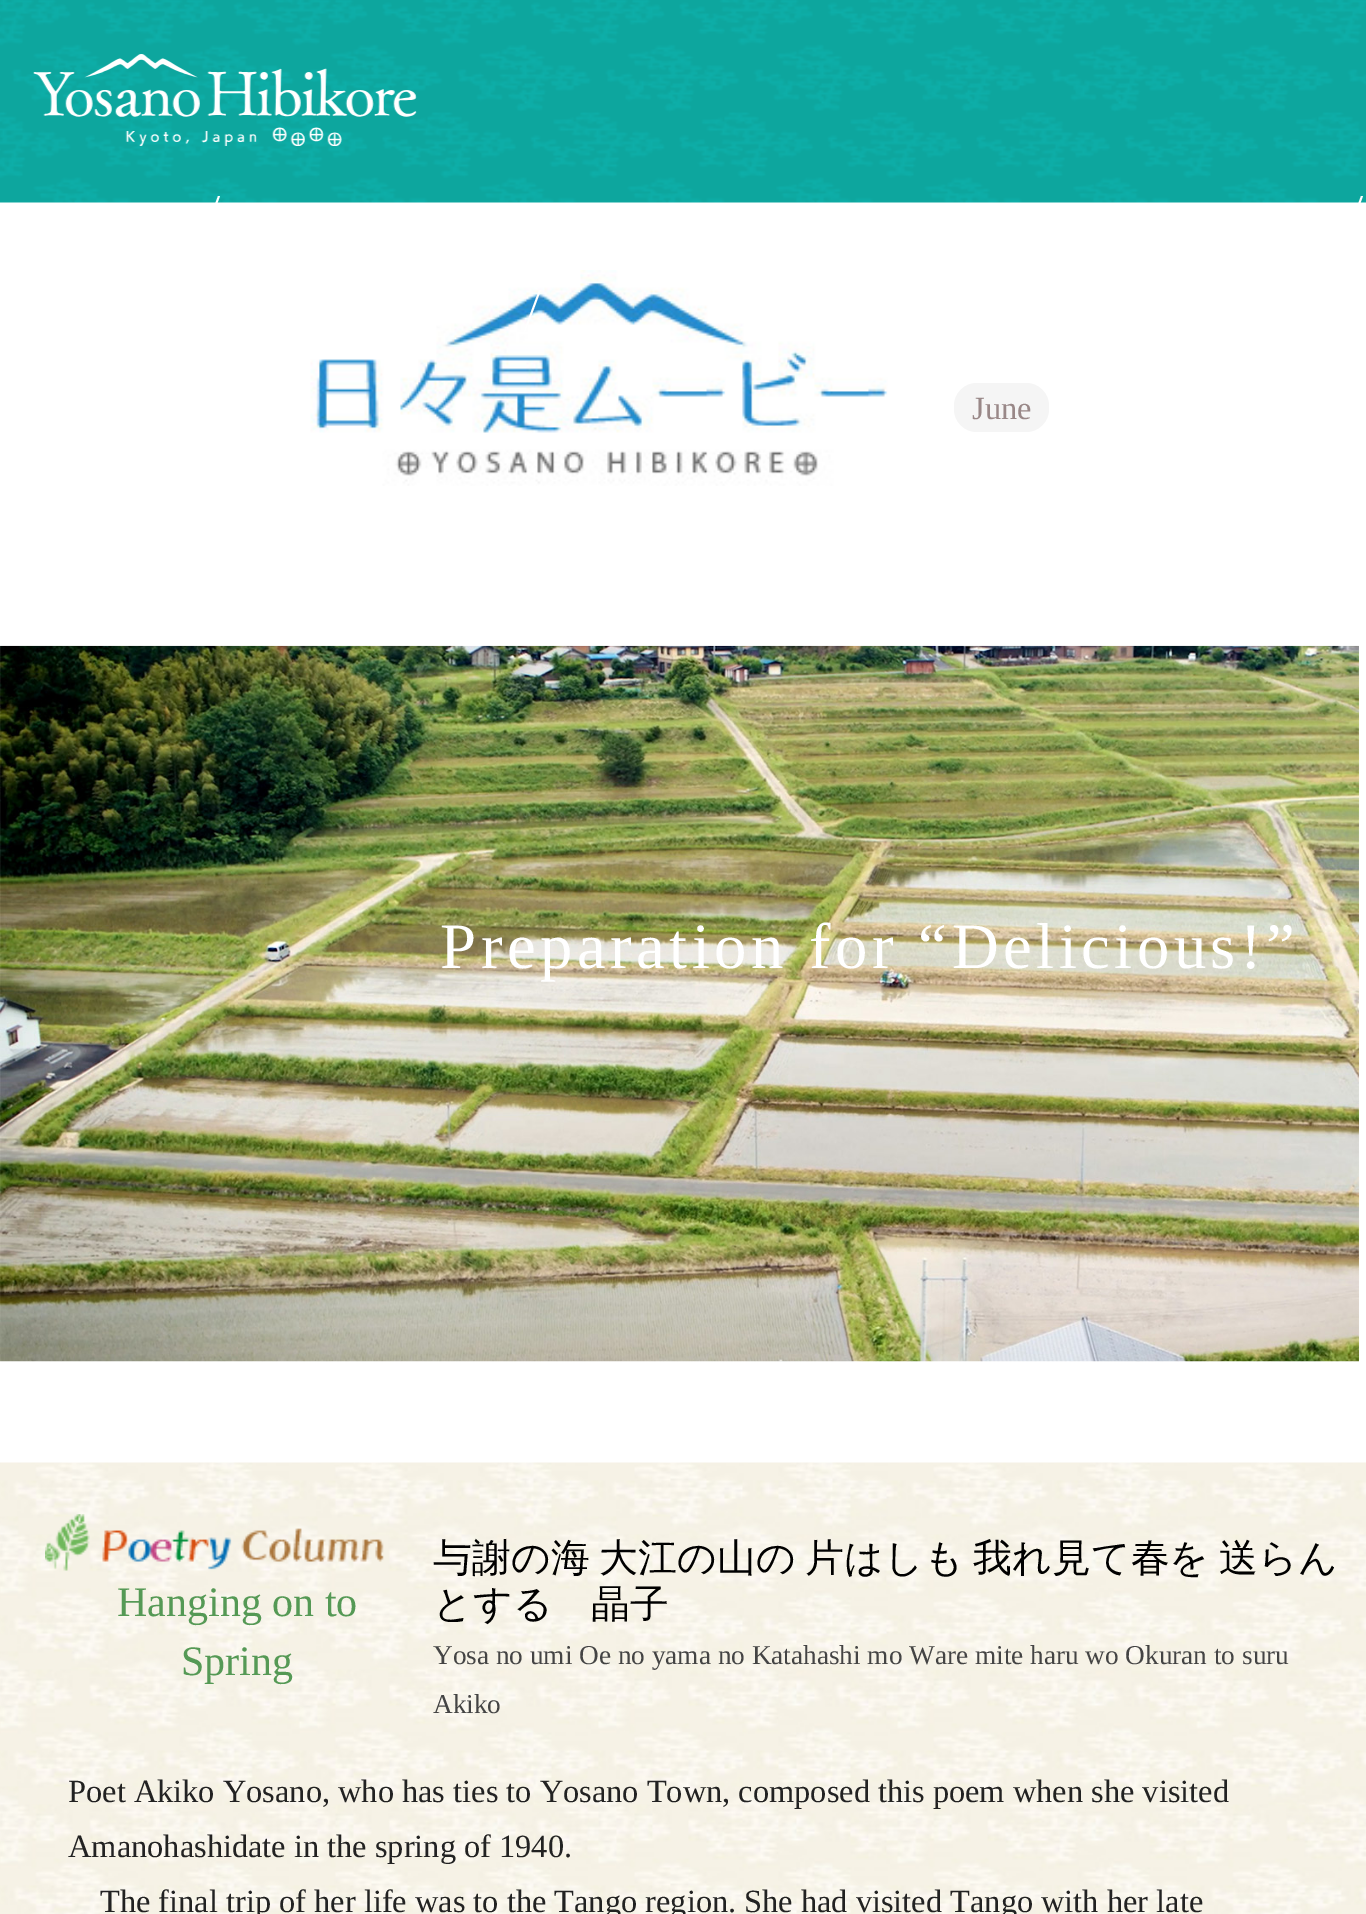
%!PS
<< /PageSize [1366 1914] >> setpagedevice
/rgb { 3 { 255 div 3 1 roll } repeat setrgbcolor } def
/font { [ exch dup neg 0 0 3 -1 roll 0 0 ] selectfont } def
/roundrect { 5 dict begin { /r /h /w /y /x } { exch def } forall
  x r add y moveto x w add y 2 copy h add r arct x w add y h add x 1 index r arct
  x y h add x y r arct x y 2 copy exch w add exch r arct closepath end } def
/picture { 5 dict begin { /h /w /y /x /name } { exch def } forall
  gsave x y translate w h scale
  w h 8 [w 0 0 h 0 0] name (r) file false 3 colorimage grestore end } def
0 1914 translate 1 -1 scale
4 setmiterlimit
255 255 255 rgb
0 0 1366 1914 rectfill
(img/1.rgb) 0 0 1366 203 picture
(img/2.rgb) 33 54 384 92 picture
1361 196 moveto 1363 196 lineto 1332 281 lineto 1330 281 lineto closepath fill
218 196 moveto 220 196 lineto 189 281 lineto 187 281 lineto closepath fill
(img/3.rgb) 310 270 578 216 picture
539 290 moveto 541 290 lineto 525 333 lineto 523 333 lineto closepath fill
245 245 245 rgb
954 383 95 49 23 roundrect fill
(img/4.rgb) 0 645 1359 717 picture
(img/5.rgb) 0 1462 1366 452 picture
(img/6.rgb) 45 1514 339 57 picture
/LiberationSerif-Regular 32.4 font
153 136 136 rgb
972 419 moveto (June) show
/LiberationSerif-Regular 64.75 font
255 255 255 rgb
440 968 moveto 4.5 0 (Preparation for “Delicious!”) ashow
/LiberationSerif-Regular 42 font
85 153 85 rgb
117 1616 moveto (Hanging on to) show
181 1675 moveto (Spring) show
/WenQuanYiZenHei-Medium 38.9 font
0 0 0 rgb
433 1571 moveto -2 0 32 (与謝の海 大江の山の 片はしも 我れ見て春を 送らん) widthshow
433 1617 moveto (とする　晶子) show
/LiberationSerif-Regular 27.25 font
68 68 68 rgb
433 1664 moveto (Yosa no umi Oe no yama no Katahashi mo Ware mite haru wo Okuran to suru) show
433 1713 moveto (Akiko) show
/LiberationSerif-Regular 32.4 font
34 34 34 rgb
[
  [(Poet Akiko Yosano, who has ties to Yosano Town, composed this poem when she visited) 68 1802]
  [(Amanohashidate in the spring of 1940.) 68 1857]
  [(The final trip of her life was to the Tango region. She had visited Tango with her late) 100 1912]
] { aload pop moveto show } forall
showpage
